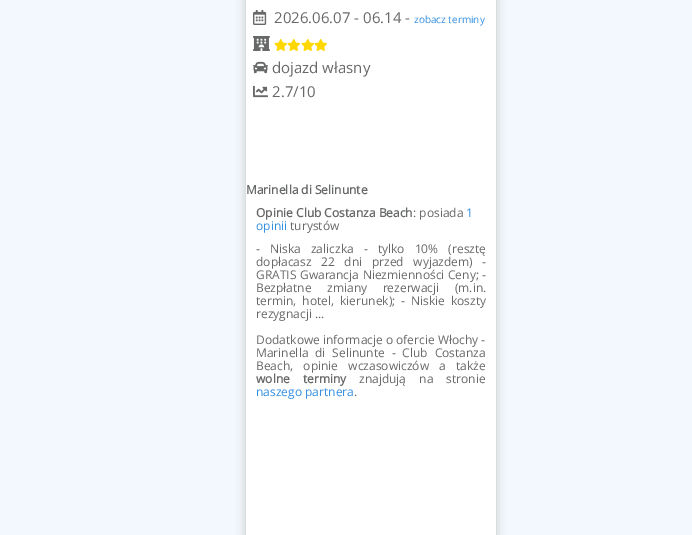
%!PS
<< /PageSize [692 535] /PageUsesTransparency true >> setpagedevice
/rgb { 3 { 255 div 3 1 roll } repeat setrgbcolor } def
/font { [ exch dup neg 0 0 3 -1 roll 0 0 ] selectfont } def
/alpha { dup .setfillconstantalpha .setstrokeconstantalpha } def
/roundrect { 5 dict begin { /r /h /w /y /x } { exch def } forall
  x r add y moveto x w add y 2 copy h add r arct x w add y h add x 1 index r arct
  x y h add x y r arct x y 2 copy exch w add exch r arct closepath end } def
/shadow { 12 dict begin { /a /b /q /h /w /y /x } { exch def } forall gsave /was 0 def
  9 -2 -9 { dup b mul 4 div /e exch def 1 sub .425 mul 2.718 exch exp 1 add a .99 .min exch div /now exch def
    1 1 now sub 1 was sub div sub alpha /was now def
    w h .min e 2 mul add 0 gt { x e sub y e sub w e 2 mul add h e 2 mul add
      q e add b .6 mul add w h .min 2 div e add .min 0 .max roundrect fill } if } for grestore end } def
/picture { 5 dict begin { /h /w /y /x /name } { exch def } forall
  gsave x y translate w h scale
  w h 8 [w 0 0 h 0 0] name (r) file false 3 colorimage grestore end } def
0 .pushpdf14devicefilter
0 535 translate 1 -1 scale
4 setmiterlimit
242 248 253 rgb
0 0 692 535 rectfill
192 192 192 rgb
246 -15 250 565 0 5 1 shadow
255 255 255 rgb
246 0 250 535 rectfill
(img/1.rgb) 253 10 14 15 picture
(img/2.rgb) 253 36 17 15 picture
(img/3.rgb) 274 39 13 12 picture
(img/3.rgb) 287 39 13 12 picture
(img/3.rgb) 301 39 13 12 picture
(img/3.rgb) 314 39 13 12 picture
(img/4.rgb) 253 61 15 13 picture
(img/5.rgb) 253 85 15 13 picture
/OpenSans-Regular 15 font
103 104 104 rgb
274 23 moveto (2026.06.07 - 06.14 -) show
/OpenSans-Regular 10 font
52 143 225 rgb
414 23 moveto (zobacz terminy) show
/OpenSans-Regular 15 font
103 104 104 rgb
272 73 moveto (dojazd własny) show
272 97 moveto (2.7/10) show
/OpenSans-Bold 12 font
246 194 moveto (Marinella di Selinunte) show
256 217 moveto (Opinie Club Costanza Beach) show
/OpenSans-Regular 12 font
413 217 moveto (: posiada) show
52 143 225 rgb
466 217 moveto (1) show
256 230 moveto (opinii) show
103 104 104 rgb
290 230 moveto (turystów) show
256 253 moveto 7 0 32 (- Niska zaliczka - tylko 10% \(resztę) widthshow
256 266 moveto 6.5 0 32 (dopłacasz 22 dni przed wyjazdem\) -) widthshow
256 279 moveto 0.5 0 32 (GRATIS Gwarancja Niezmienności Ceny; -) widthshow
256 292 moveto 12.5 0 32 (Bezpłatne zmiany rezerwacji \(m.in.) widthshow
256 305 moveto 2.75 0 32 (termin, hotel, kierunek\); - Niskie koszty) widthshow
256 318 moveto (rezygnacji ...) show
256 344 moveto (Dodatkowe informacje o ofercie Włochy -) show
256 357 moveto 3.75 0 32 (Marinella di Selinunte - Club Costanza) widthshow
256 370 moveto 7 0 32 (Beach, opinie wczasowiczów a także) widthshow
/OpenSans-Bold 12 font
256 383 moveto 10 0 32 (wolne terminy) widthshow
/OpenSans-Regular 12 font
359 383 moveto 10 0 32 (znajdują na stronie) widthshow
52 143 225 rgb
256 396 moveto (naszego partnera) show
103 104 104 rgb
354 396 moveto (.) show
.poppdf14devicefilter showpage
